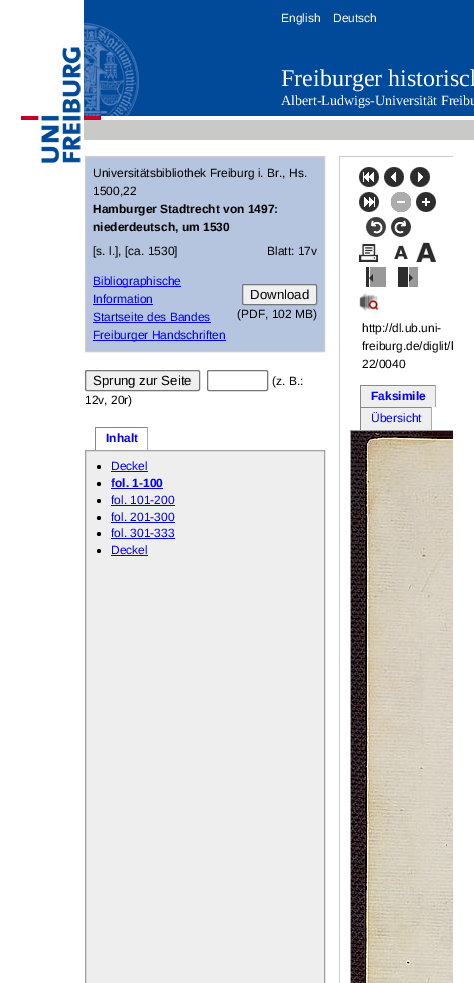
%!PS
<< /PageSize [474 983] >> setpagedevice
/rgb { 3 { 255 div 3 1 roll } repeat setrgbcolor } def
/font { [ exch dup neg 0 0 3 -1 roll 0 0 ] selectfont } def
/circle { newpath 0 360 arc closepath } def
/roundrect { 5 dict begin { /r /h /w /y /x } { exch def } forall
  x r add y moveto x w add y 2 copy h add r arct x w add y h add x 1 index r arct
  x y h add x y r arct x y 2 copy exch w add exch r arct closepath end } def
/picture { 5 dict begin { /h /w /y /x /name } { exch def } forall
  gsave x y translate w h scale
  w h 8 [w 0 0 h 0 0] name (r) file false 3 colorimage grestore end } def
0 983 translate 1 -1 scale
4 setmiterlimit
255 255 255 rgb
0 0 474 983 rectfill
(img/1.rgb) 84 0 390 140 picture
(img/2.rgb) 21 47 60 116 picture
(img/3.rgb) 84 23 55 97 picture
182 197 223 rgb
85.5 156.5 moveto 324.5 156.5 lineto 324.5 351.5 lineto 85.5 351.5 lineto closepath gsave fill grestore
204 204 204 rgb
stroke
0 0 238 rgb
93 286 88 1 rectfill
93 304 60 1 rectfill
239 239 239 rgb
242.5 284.5 74 20 1.5 roundrect gsave fill grestore
118 118 118 rgb
stroke
0 0 238 rgb
93 322 118 1 rectfill
93 340 133 1 rectfill
239 239 239 rgb
85.5 370.5 114 20 1.5 roundrect gsave fill grestore
118 118 118 rgb
stroke
207.5 370.5 60 20 1.5 roundrect stroke
[
  [95 427 53 1 136 136 136]
  [147 427 1 23 170 170 170]
  [95 427 1 23 136 136 136]
] { aload pop rgb rectfill } forall
238 238 238 rgb
85.5 450.5 moveto 324.5 450.5 lineto 324.5 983.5 lineto 85.5 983.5 lineto closepath gsave fill grestore
160 160 160 rgb
stroke
0 0 0 rgb
99 467 2 circle fill
0 0 238 rgb
111 471 37 1 rectfill
0 0 0 rgb
99 484 2 circle fill
0 0 238 rgb
111 488 52 1 rectfill
0 0 0 rgb
99 501 2 circle fill
0 0 238 rgb
111 505 64 1 rectfill
0 0 0 rgb
99 518 2 circle fill
0 0 238 rgb
111 522 64 1 rectfill
0 0 0 rgb
99 534 2 circle fill
0 0 238 rgb
111 538 64 1 rectfill
0 0 0 rgb
99 551 2 circle fill
[
  [111 555 37 1 0 0 238]
  [339 156 114 1 204 204 204]
  [339 156 1 827 204 204 204]
] { aload pop rgb rectfill } forall
(img/4.rgb) 359 167 20 20 picture
(img/5.rgb) 384 167 20 20 picture
(img/6.rgb) 410 167 20 20 picture
(img/7.rgb) 359 192 20 20 picture
(img/8.rgb) 391 192 20 20 picture
(img/9.rgb) 416 192 20 20 picture
(img/10.rgb) 366 217 20 20 picture
(img/11.rgb) 391 217 20 20 picture
(img/12.rgb) 359 244 19 18 picture
(img/13.rgb) 394 245 14 14 picture
(img/14.rgb) 416 242 20 20 picture
(img/15.rgb) 366 267 20 20 picture
(img/16.rgb) 398 267 20 20 picture
(img/17.rgb) 359 293 20 18 picture
[
  [361 386 74 21 238 238 238]
  [360 385 76 1 136 136 136]
  [435 385 1 22 170 170 170]
  [360 385 1 22 136 136 136]
  [361 408 70 22 238 238 238]
  [360 407 72 1 136 136 136]
  [431 407 1 23 170 170 170]
  [360 407 1 23 136 136 136]
] { aload pop rgb rectfill } forall
gsave
85 156 368 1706 rectclip
160 160 160 rgb
350.5 430.5 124 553 rectstroke
grestore
(img/18.rgb) 351 431 102 552 picture
/LiberationSans-Regular 12 font
255 255 255 rgb
281 22 moveto (English) show
333 22 moveto (Deutsch) show
/LiberationSerif-Regular 24 font
281 86 moveto (Freiburger historisch) show
/LiberationSerif-Regular 14 font
281 105 moveto (Albert-Ludwigs-Universität Freibu) show
/LiberationSans-Regular 12 font
0 0 0 rgb
93 177 moveto (Universitätsbibliothek Freiburg i. Br., Hs.) show
93 195 moveto (1500,22) show
/LiberationSans-Bold 12 font
93 213 moveto (Hamburger Stadtrecht von 1497:) show
93 231 moveto (niederdeutsch, um 1530) show
/LiberationSans-Regular 12 font
93 255 moveto ([s. l.], [ca. 1530]) show
267 255 moveto (Blatt: 17v) show
0 0 238 rgb
93 285 moveto (Bibliographische) show
93 303 moveto (Information) show
/LiberationSans-Regular 13.25 font
0 0 0 rgb
250 299 moveto (Download) show
/LiberationSans-Regular 12 font
237 318 moveto (\(PDF, 102 MB\)) show
0 0 238 rgb
93 321 moveto (Startseite des Bandes) show
93 339 moveto (Freiburger Handschriften) show
/LiberationSans-Regular 13.25 font
0 0 0 rgb
93 385 moveto (Sprung zur Seite) show
/LiberationSans-Regular 12 font
272 385 moveto (\(z. B.:) show
85 404 moveto (12v, 20r\)) show
/LiberationSans-Bold 12 font
0 0 238 rgb
106 442 moveto (Inhalt) show
/LiberationSans-Regular 12 font
111 470 moveto (Deckel) show
/LiberationSans-Bold 12 font
111 487 moveto (fol. 1-100) show
/LiberationSans-Regular 12 font
[
  [(fol. 101-200) 111 504]
  [(fol. 201-300) 111 521]
  [(fol. 301-333) 111 537]
  [(Deckel) 111 554]
] { aload pop moveto show } forall
0 0 0 rgb
362 332 moveto (http://dl.ub.uni-) show
gsave
350 167 103 208 rectclip
362 350 moveto (freiburg.de/diglit/h) show
grestore
362 368 moveto (22/0040) show
/LiberationSans-Bold 12 font
0 0 238 rgb
371 400 moveto (Faksimile) show
/LiberationSans-Regular 12 font
371 422 moveto (Übersicht) show
showpage
